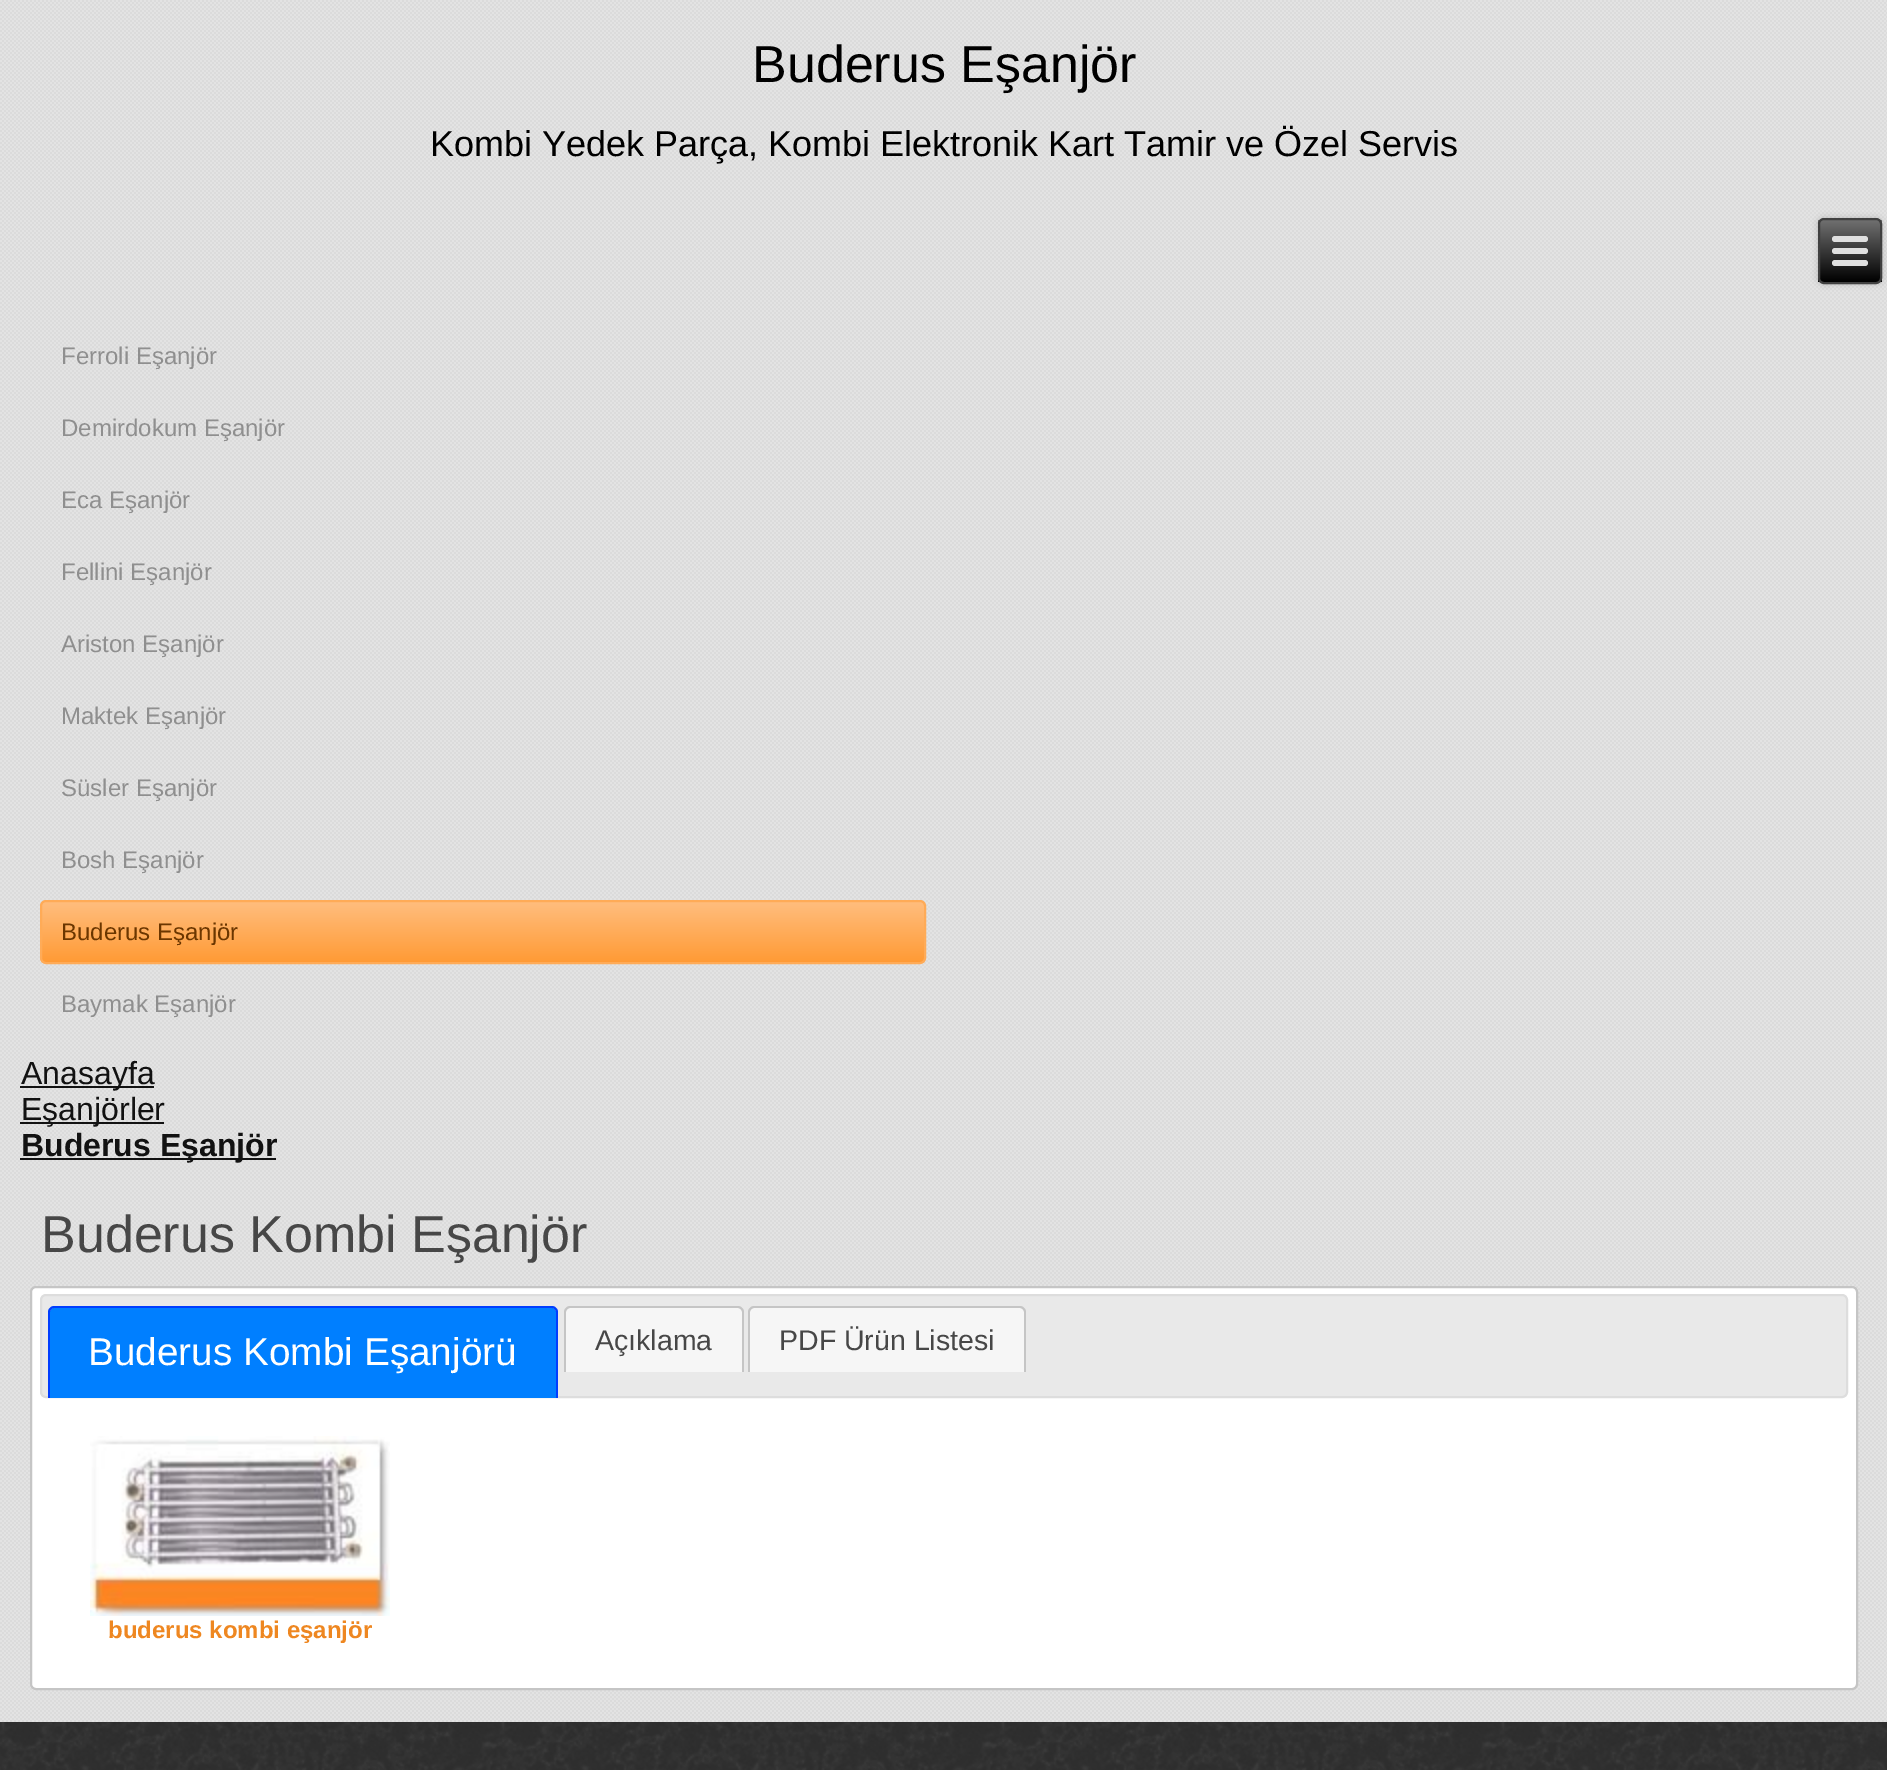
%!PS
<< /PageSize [1887 1770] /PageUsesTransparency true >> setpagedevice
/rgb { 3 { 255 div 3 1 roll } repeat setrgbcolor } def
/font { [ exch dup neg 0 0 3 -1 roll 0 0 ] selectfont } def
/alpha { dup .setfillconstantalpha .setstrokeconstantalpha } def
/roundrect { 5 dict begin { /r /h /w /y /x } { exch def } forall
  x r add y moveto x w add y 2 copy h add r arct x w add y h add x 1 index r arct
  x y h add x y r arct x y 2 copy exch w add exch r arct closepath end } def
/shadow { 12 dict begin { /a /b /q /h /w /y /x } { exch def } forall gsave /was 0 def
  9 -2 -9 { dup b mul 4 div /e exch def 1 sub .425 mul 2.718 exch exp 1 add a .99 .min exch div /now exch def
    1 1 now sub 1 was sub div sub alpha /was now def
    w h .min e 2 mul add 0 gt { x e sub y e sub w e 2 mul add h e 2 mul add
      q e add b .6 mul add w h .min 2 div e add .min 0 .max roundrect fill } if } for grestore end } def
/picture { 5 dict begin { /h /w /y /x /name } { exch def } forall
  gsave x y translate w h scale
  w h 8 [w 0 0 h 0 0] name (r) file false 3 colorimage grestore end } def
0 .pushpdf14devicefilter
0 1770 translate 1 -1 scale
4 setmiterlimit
229 229 229 rgb
0 0 1887 1770 rectfill
(img/1.rgb) 0 0 1887 1722 picture
0 0 0 rgb
1818 218 64 66 6 3 0.2 shadow
gsave
1818 218 64 66 6 roundrect clip newpath
gsave 1818 220 moveto 1882 220 lineto 1882 282 lineto 1818 282 lineto closepath clip newpath
<< /ShadingType 2 /ColorSpace /DeviceRGB /Coords [1850 220 1850 282] /Extend [true true] /Function << /FunctionType 2 /Domain [0 1] /C0 [0.439 0.439 0.439] /C1 [0 0 0] /N 1 >> >> shfill grestore
grestore
64 64 64 rgb
2 setlinewidth
1819 219 62 64 5 roundrect stroke
224 224 224 rgb
1832 236 36 6 3 roundrect fill
1832 248 36 6 3 roundrect fill
1832 260 36 6 3 roundrect fill
gsave 41 901 884 62 5 roundrect clip newpath
<< /ShadingType 2 /ColorSpace /DeviceRGB /Coords [483 900 483 964] /Extend [true true] /Function << /FunctionType 2 /Domain [0 1] /C0 [1 0.749 0.502] /C1 [1 0.6 0.2] /N 1 >> >> shfill grestore
255 171 87 rgb
41 901 884 62 5 roundrect stroke
[
  [20 1086 134 2 18 18 18]
  [20 1122 144 2 18 18 18]
  [20 1158 256 2 18 18 18]
] { aload pop rgb rectfill } forall
255 255 255 rgb
31 1287 1826 402 5 roundrect gsave fill grestore
197 197 197 rgb
stroke
233 233 233 rgb
41 1295 1806 102 5 roundrect gsave fill grestore
221 221 221 rgb
stroke
0 127 255 rgb
54 1308 moveto 552 1308 lineto 554 1308 556 1310 556 1312 curveto 556 1398 lineto 50 1398 lineto 50 1312 lineto 50 1310 52 1308 54 1308 curveto closepath fill
0 62 255 rgb
54 1306 moveto 552 1306 lineto 555 1306 558 1309 558 1312 curveto 558 1398 lineto 48 1398 lineto 48 1312 lineto 48 1309 51 1306 54 1306 curveto closepath 54 1308 moveto 552 1308 lineto 554 1308 556 1310 556 1312 curveto 556 1398 lineto 50 1398 lineto 50 1312 lineto 50 1310 52 1308 54 1308 curveto closepath eofill
246 246 246 rgb
570 1308 moveto 738 1308 lineto 740 1308 742 1310 742 1312 curveto 742 1372 lineto 566 1372 lineto 566 1312 lineto 566 1310 568 1308 570 1308 curveto closepath fill
197 197 197 rgb
570 1306 moveto 738 1306 lineto 741 1306 744 1309 744 1312 curveto 744 1372 lineto 564 1372 lineto 564 1312 lineto 564 1309 567 1306 570 1306 curveto closepath 570 1308 moveto 738 1308 lineto 740 1308 742 1310 742 1312 curveto 742 1372 lineto 566 1372 lineto 566 1312 lineto 566 1310 568 1308 570 1308 curveto closepath eofill
246 246 246 rgb
754 1308 moveto 1020 1308 lineto 1022 1308 1024 1310 1024 1312 curveto 1024 1372 lineto 750 1372 lineto 750 1312 lineto 750 1310 752 1308 754 1308 curveto closepath fill
197 197 197 rgb
754 1306 moveto 1020 1306 lineto 1023 1306 1026 1309 1026 1312 curveto 1026 1372 lineto 748 1372 lineto 748 1312 lineto 748 1309 751 1306 754 1306 curveto closepath 754 1308 moveto 1020 1308 lineto 1022 1308 1024 1310 1024 1312 curveto 1024 1372 lineto 750 1372 lineto 750 1312 lineto 750 1310 752 1308 754 1308 curveto closepath eofill
(img/2.rgb) 90 1436 300 180 picture
51 51 51 rgb
0 1722 1887 48 rectfill
(img/3.rgb) 0 1722 1887 48 picture
/LiberationSans-Regular 52 font
0 0 0 rgb
752 82 moveto (Buderus Eşanjör) show
/LiberationSans-Regular 36 font
430 156 moveto (Kombi Yedek Parça, Kombi Elektronik Kart Tamir ve Özel Servis) show
/LiberationSans-Regular 24 font
143 143 143 rgb
[
  [(Ferroli Eşanjör) 61 364]
  [(Demirdokum Eşanjör) 61 436]
  [(Eca Eşanjör) 61 508]
  [(Fellini Eşanjör) 61 580]
  [(Ariston Eşanjör) 61 652]
  [(Maktek Eşanjör) 61 724]
  [(Süsler Eşanjör) 61 796]
  [(Bosh Eşanjör) 61 868]
] { aload pop moveto show } forall
107 54 0 rgb
61 940 moveto (Buderus Eşanjör) show
143 143 143 rgb
61 1012 moveto (Baymak Eşanjör) show
/LiberationSans-Regular 32 font
18 18 18 rgb
21 1084 moveto (Anasayfa) show
21 1120 moveto (Eşanjörler) show
/LiberationSans-Bold 32 font
21 1156 moveto (Buderus Eşanjör) show
/LiberationSans-Regular 52 font
71 71 71 rgb
41 1252 moveto (Buderus Kombi Eşanjör) show
/LiberationSans-Regular 38.75 font
255 255 255 rgb
88 1365 moveto (Buderus Kombi Eşanjörü) show
/LiberationSans-Regular 28.5 font
71 71 71 rgb
595 1350 moveto (Açıklama) show
779 1350 moveto (PDF Ürün Listesi) show
/LiberationSans-Bold 24 font
238 135 33 rgb
108 1638 moveto (buderus kombi eşanjör) show
.poppdf14devicefilter showpage
